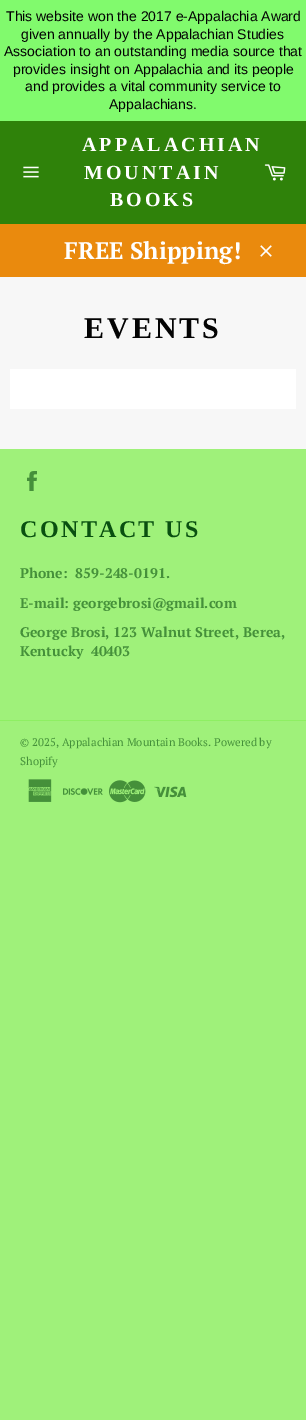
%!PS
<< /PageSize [306 1420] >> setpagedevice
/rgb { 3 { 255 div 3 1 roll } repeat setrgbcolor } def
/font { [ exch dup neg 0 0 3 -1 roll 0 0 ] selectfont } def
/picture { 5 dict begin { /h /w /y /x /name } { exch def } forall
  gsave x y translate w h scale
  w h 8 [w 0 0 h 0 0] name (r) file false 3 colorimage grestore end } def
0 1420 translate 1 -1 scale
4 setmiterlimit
159 241 122 rgb
0 0 306 1420 rectfill
[
  [0 277 306 172 247 247 247]
  [0 0 306 121 129 250 109]
  [0 121 306 103 47 130 10]
] { aload pop rgb rectfill } forall
(img/1.rgb) 23 166 16 12 picture
(img/2.rgb) 264 164 22 17 picture
234 138 13 rgb
0 224 306 53 rectfill
(img/3.rgb) 260 245 12 12 picture
255 255 255 rgb
10 369 286 40 rectfill
(img/4.rgb) 27 471 10 20 picture
142 239 99 rgb
0 720 306 1 rectfill
(img/5.rgb) 28 779 24 23 picture
(img/6.rgb) 63 788 40 7 picture
(img/7.rgb) 109 780 37 23 picture
(img/8.rgb) 154 786 33 12 picture
/LiberationSans-Regular 14 font
3 3 3 rgb
[
  [(This website won the 2017 e-Appalachia Award) 6 21]
  [(given annually by the Appalachian Studies) 21 39]
  [(Association to an outstanding media source that) 4 56]
  [(provides insight on Appalachia and its people) 13 74]
  [(and provides a vital community service to) 25 91]
  [(Appalachians.) 109 109]
] { aload pop moveto show } forall
/LiberationSerif-Bold 20 font
255 255 255 rgb
82 151 moveto 3 0 (APPALACHIAN) ashow
84 179 moveto 3 0 (MOUNTAIN) ashow
110 206 moveto 3 0 (BOOKS) ashow
/PTSerif-Bold 24 font
64 259 moveto (FREE Shipping!) show
/LiberationSerif-Bold 30 font
3 3 3 rgb
84 338 moveto 3 0 (EVENTS) ashow
/LiberationSerif-Bold 24 font
9 80 16 rgb
20 537 moveto 2.4 0 (CONTACT US) ashow
/PTSerif-Bold 14 font
69 144 58 rgb
[
  [(Phone:  859-248-0191.) 20 578]
  [(E-mail: georgebrosi@gmail.com) 20 608]
  [(George Brosi, 123 Walnut Street, Berea,) 20 637]
  [(Kentucky  40403) 20 656]
] { aload pop moveto show } forall
/PTSerif-Regular 11.2 font
20 746 moveto (© 2025, Appalachian Mountain Books. Powered by) show
20 765 moveto (Shopify) show
showpage
